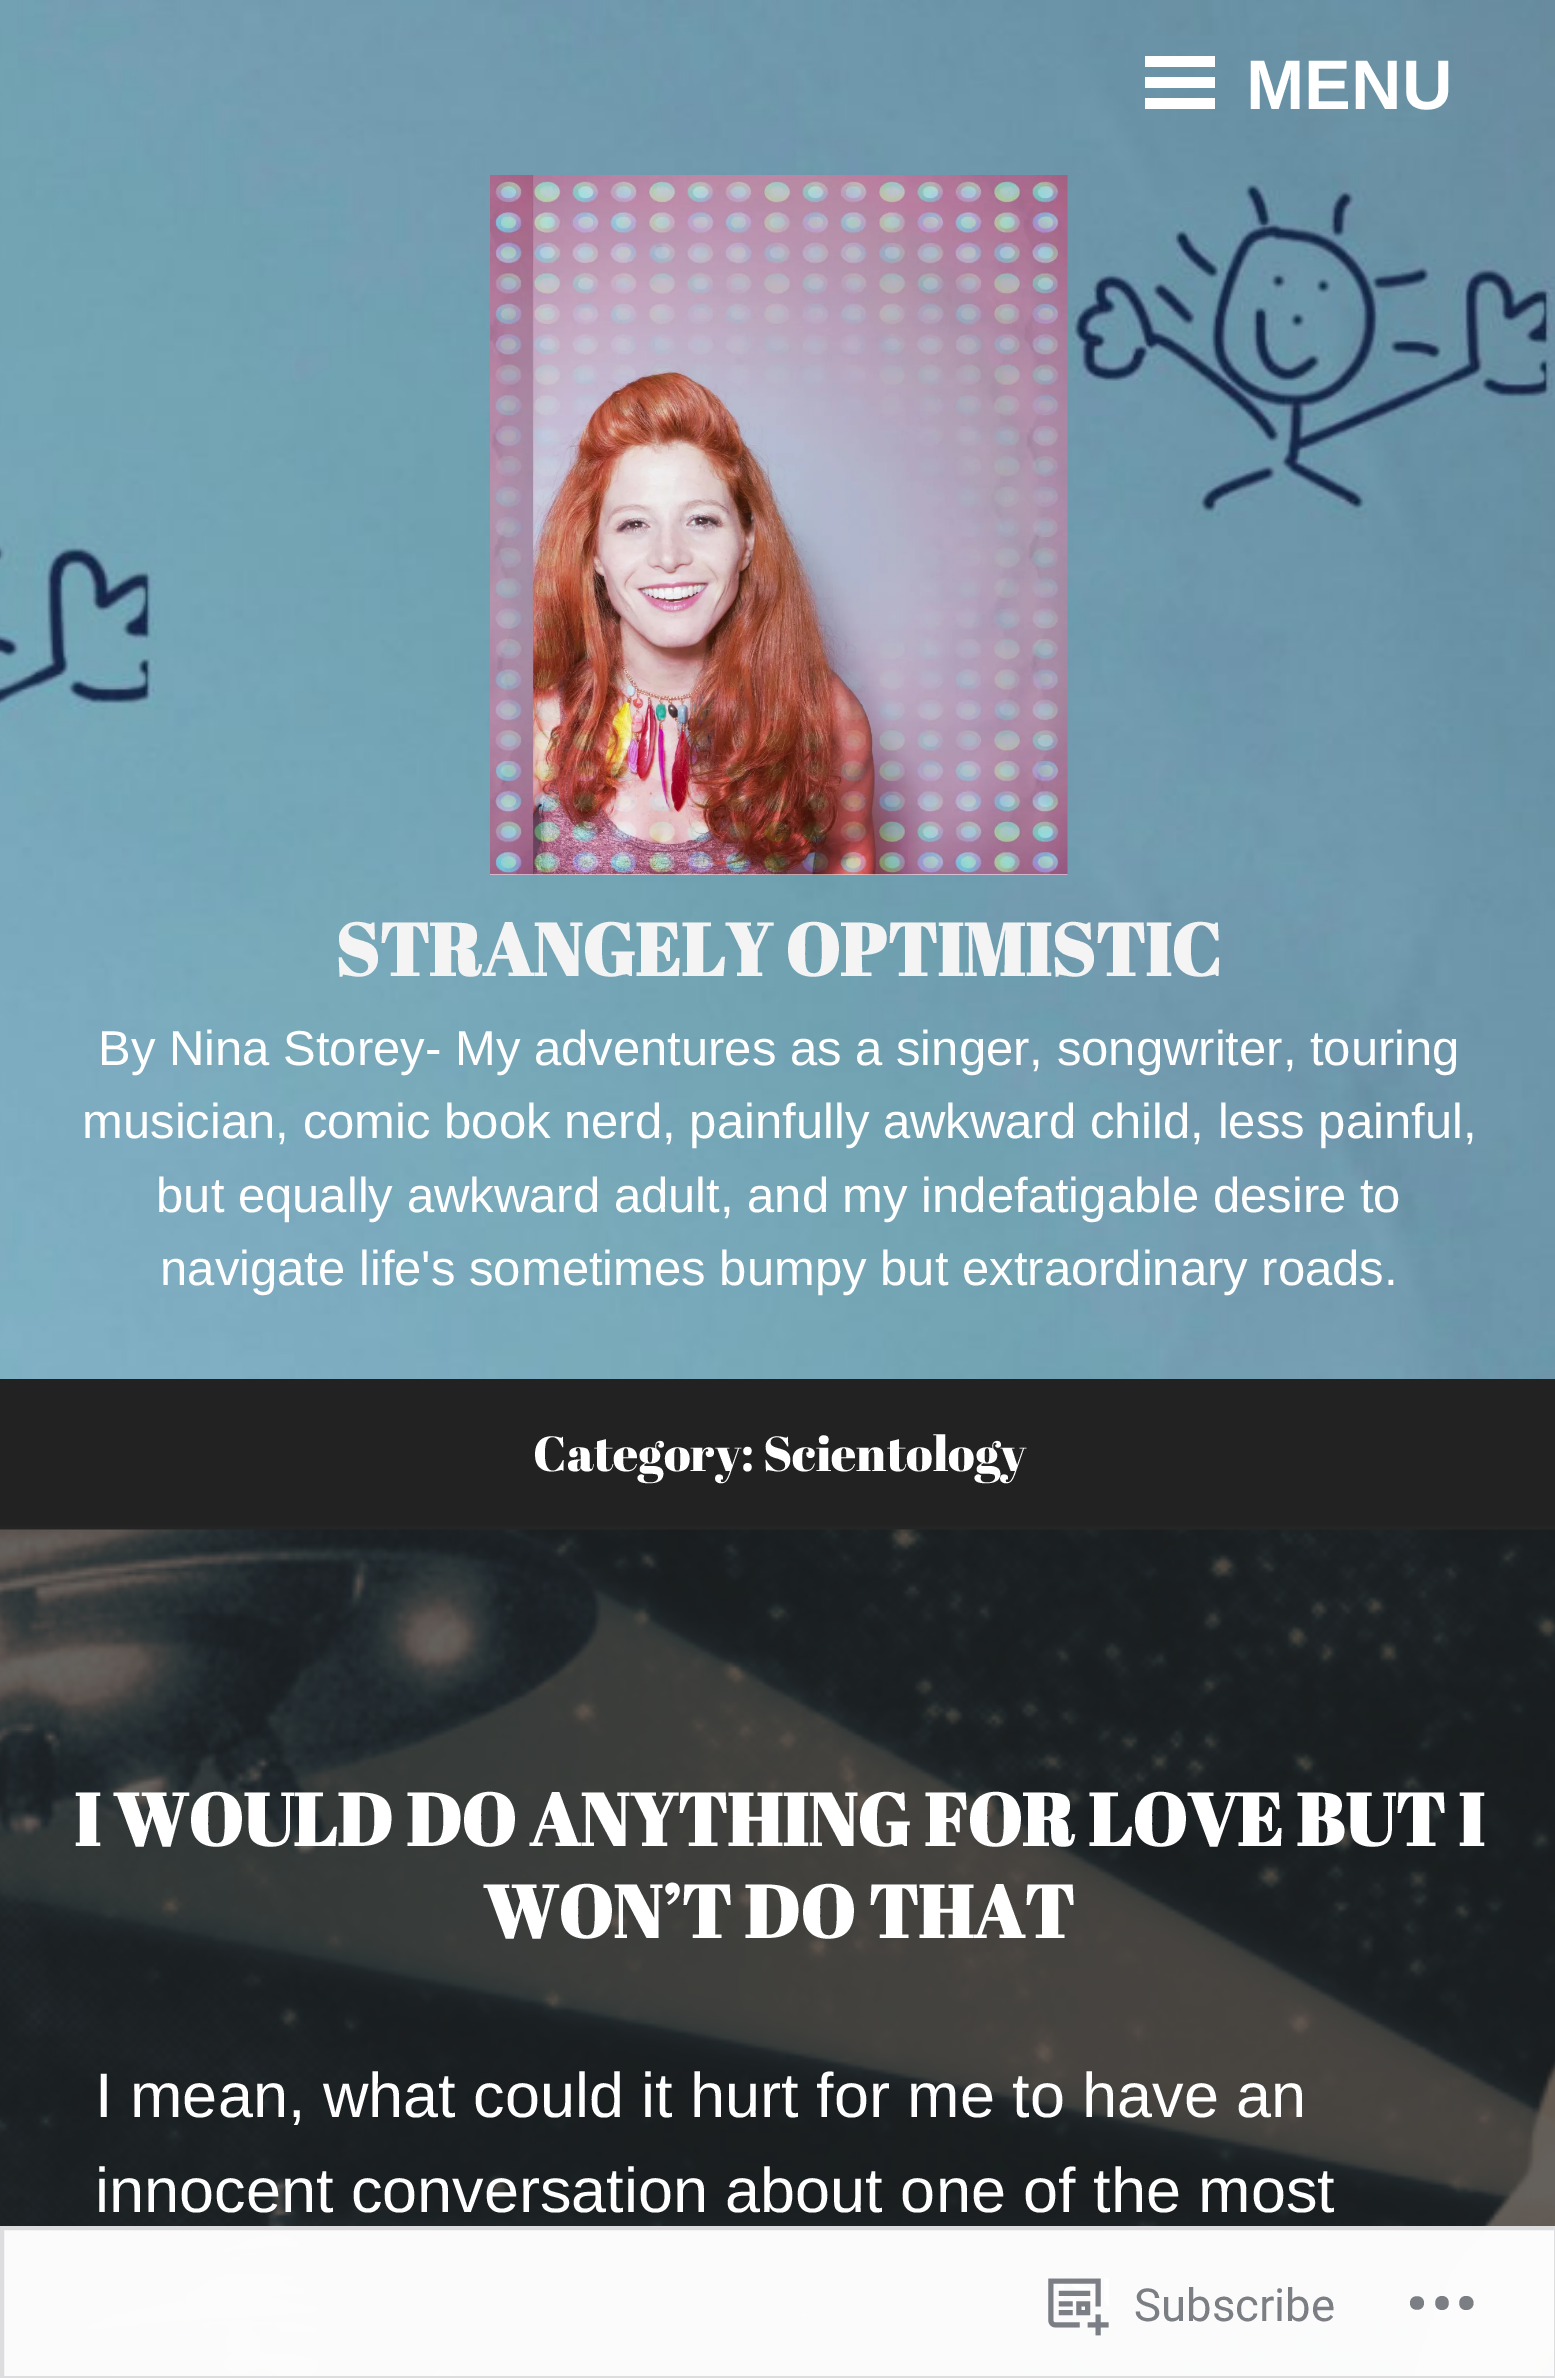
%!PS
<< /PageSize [1555 2378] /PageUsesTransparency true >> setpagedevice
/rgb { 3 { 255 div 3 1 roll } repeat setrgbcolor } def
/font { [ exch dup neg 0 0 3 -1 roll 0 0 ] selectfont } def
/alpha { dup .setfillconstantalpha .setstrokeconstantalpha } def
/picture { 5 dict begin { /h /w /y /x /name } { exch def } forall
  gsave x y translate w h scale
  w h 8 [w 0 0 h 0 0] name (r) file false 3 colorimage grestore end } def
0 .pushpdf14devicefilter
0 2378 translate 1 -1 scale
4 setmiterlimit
255 255 255 rgb
0 0 1555 2378 rectfill
(img/1.rgb) 0 0 1555 1379 picture
[
  [1145 77 70 11 255 255 255]
  [1145 56 70 11 255 255 255]
  [1145 98 70 11 255 255 255]
] { aload pop rgb rectfill } forall
(img/2.rgb) 490 175 578 700 picture
[
  [0 1379 1555 147 34 34 34]
  [0 1526 1555 4 37 37 37]
  [0 1530 1555 848 34 34 34]
] { aload pop rgb rectfill } forall
(img/3.rgb) 0 1529 1555 849 picture
0.98 alpha
255 255 255 rgb
0 2226 1555 152 rectfill
220 220 222 rgb
4 setlinewidth
2 2228 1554 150 rectstroke
1 alpha
(img/4.rgb) 1048 2278 61 58 picture
123 127 132 rgb
1424 2303 moveto 1424 2312 1410 2312 1410 2303 curveto 1410 2294 1424 2294 1424 2303 curveto closepath 1466 2296 moveto 1457 2296 1457 2310 1466 2310 curveto 1476 2310 1476 2296 1466 2296 curveto closepath 1442 2296 moveto 1433 2296 1433 2310 1442 2310 curveto 1451 2310 1451 2296 1442 2296 curveto closepath fill
/Arimo-Bold 70 font
255 255 255 rgb
1246 109 moveto (MENU) show
/AbrilFatface-Bold 73.5 font
244 244 244 rgb
335 976 moveto (STRANGELY OPTIMISTIC) show
/Arimo-Regular 49 font
255 255 255 rgb
[
  [(By Nina Storey- My adventures as a singer, songwriter, touring) 98 1065]
  [(musician, comic book nerd, painfully awkward child, less painful,) 82 1138]
  [(but equally awkward adult, and my indefatigable desire to) 156 1212]
  [(navigate life's sometimes bumpy but extraordinary roads.) 160 1285]
] { aload pop moveto show } forall
/AbrilFatface-Regular 49 font
533 1471 moveto (Category: Scientology) show
/AbrilFatface-Bold 73.5 font
74 1846 moveto (I WOULD DO ANYTHING FOR LOVE BUT I) show
483 1938 moveto (WON’T DO THAT) show
/Arimo-Regular 63 font
95 2117 moveto (I mean, what could it hurt for me to have an) show
95 2212 moveto (innocent conversation about one of the most) show
/Roboto-Regular 45.5 font
123 127 132 rgb
1134 2321 moveto (Subscribe) show
.poppdf14devicefilter showpage
